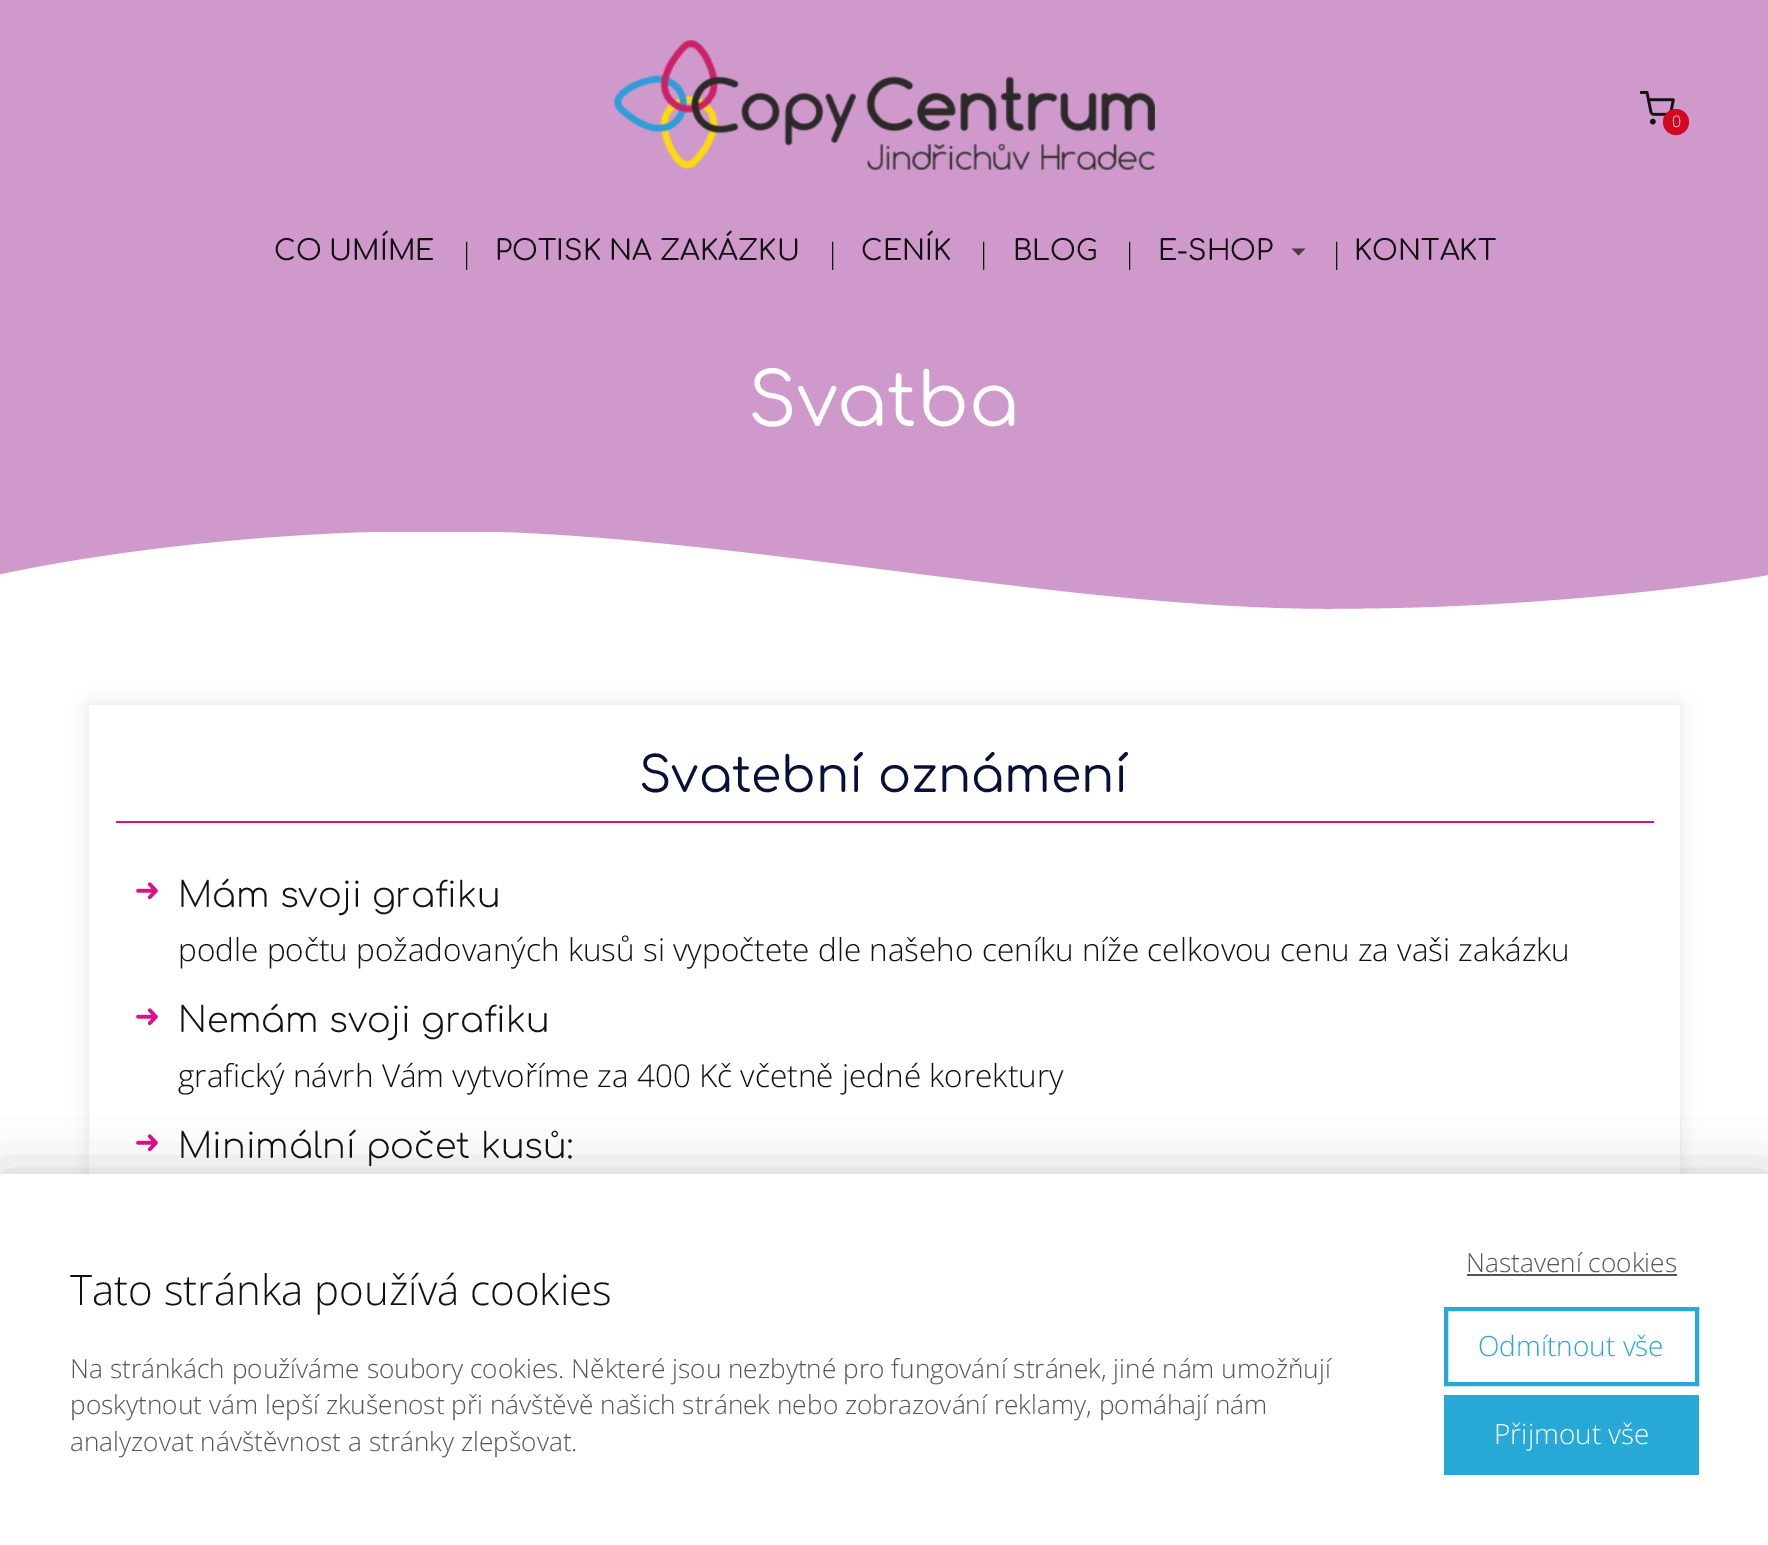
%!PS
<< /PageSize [1768 1545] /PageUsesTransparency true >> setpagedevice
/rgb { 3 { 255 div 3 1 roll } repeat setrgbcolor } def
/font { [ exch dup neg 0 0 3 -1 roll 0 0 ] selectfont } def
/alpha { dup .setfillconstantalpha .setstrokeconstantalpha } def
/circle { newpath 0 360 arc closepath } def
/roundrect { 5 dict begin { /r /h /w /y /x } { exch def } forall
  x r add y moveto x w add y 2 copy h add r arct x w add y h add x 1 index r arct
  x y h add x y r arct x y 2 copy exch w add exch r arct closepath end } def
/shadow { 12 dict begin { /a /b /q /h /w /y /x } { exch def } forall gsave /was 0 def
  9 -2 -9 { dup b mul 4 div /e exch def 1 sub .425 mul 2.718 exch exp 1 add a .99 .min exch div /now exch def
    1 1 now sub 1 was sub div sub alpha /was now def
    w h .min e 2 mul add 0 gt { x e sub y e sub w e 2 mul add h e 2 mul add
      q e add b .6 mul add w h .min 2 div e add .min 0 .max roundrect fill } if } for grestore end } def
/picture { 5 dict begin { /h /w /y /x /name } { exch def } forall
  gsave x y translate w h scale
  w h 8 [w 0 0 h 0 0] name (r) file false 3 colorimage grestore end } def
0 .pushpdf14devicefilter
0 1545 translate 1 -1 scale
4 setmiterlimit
255 255 255 rgb
0 0 1768 1545 rectfill
207 153 203 rgb
0 0 1768 609 rectfill
(img/1.rgb) 614 40 541 130 picture
(img/2.rgb) 1640 91 35 34 picture
211 8 32 rgb
1676 122 13 circle fill
74 58 73 rgb
1291.5 248.5 moveto 1305.5 248.5 lineto 1298.5 255.5 lineto closepath fill
gsave
0 532 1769 88 rectclip
255 255 255 rgb
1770 619 moveto -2 619 lineto -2 575 lineto -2 575 187 531 443 531 curveto 714 531 1058 609 1328 609 curveto 1581 609 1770 575 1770 575 curveto fill
grestore
0 0 0 rgb
89 705 1591 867 0 9 0.1 shadow
255 255 255 rgb
89 705 1591 469 rectfill
221 16 135 rgb
116 821 1538 2 rectfill
(img/3.rgb) 136 882 22 18 picture
(img/3.rgb) 136 1008 22 18 picture
(img/3.rgb) 136 1134 22 18 picture
0 0 0 rgb
0 1174 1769 371 0 26 0.2 shadow
255 255 255 rgb
0 1174 1768 371 rectfill
85 85 85 rgb
1467 1274 210 2 rectfill
39 168 215 rgb
4 setlinewidth
1446 1309 251 75 rectstroke
1444 1395 255 80 rectfill
/OpenSans-Light 16 font
255 255 255 rgb
1672 127 moveto (0) show
/Comfortaa-Regular 28 font
17 17 17 rgb
274 260 moveto (CO UMÍME) show
/OpenSans-Light 28 font
459 263 moveto (|) show
/Comfortaa-Regular 28 font
495 260 moveto (POTISK NA ZAKÁZKU) show
/OpenSans-Light 28 font
825 263 moveto (|) show
/Comfortaa-Regular 28 font
861 260 moveto (CENÍK) show
/OpenSans-Light 28 font
976 263 moveto (|) show
/Comfortaa-Regular 28 font
1013 260 moveto (BLOG) show
/OpenSans-Light 28 font
1122 263 moveto (|) show
/Comfortaa-Regular 28 font
1158 260 moveto (E-SHOP) show
/OpenSans-Light 28 font
1329 263 moveto (|) show
/Comfortaa-Regular 28 font
1354 260 moveto (KONTAKT) show
/Comfortaa-Regular 73.5 font
255 255 255 rgb
748 426 moveto (Svatba) show
/Comfortaa-Regular 49 font
7 17 56 rgb
639 792 moveto (Svatební oznámení) show
/Comfortaa-Light 35 font
17 17 17 rgb
178 907 moveto (Mám svoji grafiku) show
/OpenSans-Light 31.5 font
178 961 moveto (podle počtu požadovaných kusů si vypočtete dle našeho ceníku níže celkovou cenu za vaši zakázku) show
/Comfortaa-Light 35 font
178 1032 moveto (Nemám svoji grafiku) show
/OpenSans-Light 31.5 font
178 1087 moveto (grafický návrh Vám vytvoříme za 400 Kč včetně jedné korektury) show
/Comfortaa-Light 35 font
178 1158 moveto (Minimální počet kusů:) show
/OpenSans-Light 42 font
70 1305 moveto (Tato stránka používá cookies) show
/OpenSans-Light 26.25 font
85 85 85 rgb
[
  [(Na stránkách používáme soubory cookies. Některé jsou nezbytné pro fungování stránek, jiné nám umožňují) 70 1378]
  [(poskytnout vám lepší zkušenost při návštěvě našich stránek nebo zobrazování reklamy, pomáhají nám) 70 1414]
  [(analyzovat návštěvnost a stránky zlepšovat.) 70 1451]
  [(Nastavení cookies) 1466 1272]
] { aload pop moveto show } forall
/OpenSans-Light 28 font
39 168 215 rgb
1478 1356 moveto (Odmítnout vše) show
255 255 255 rgb
1494 1444 moveto (Přijmout vše) show
.poppdf14devicefilter showpage
